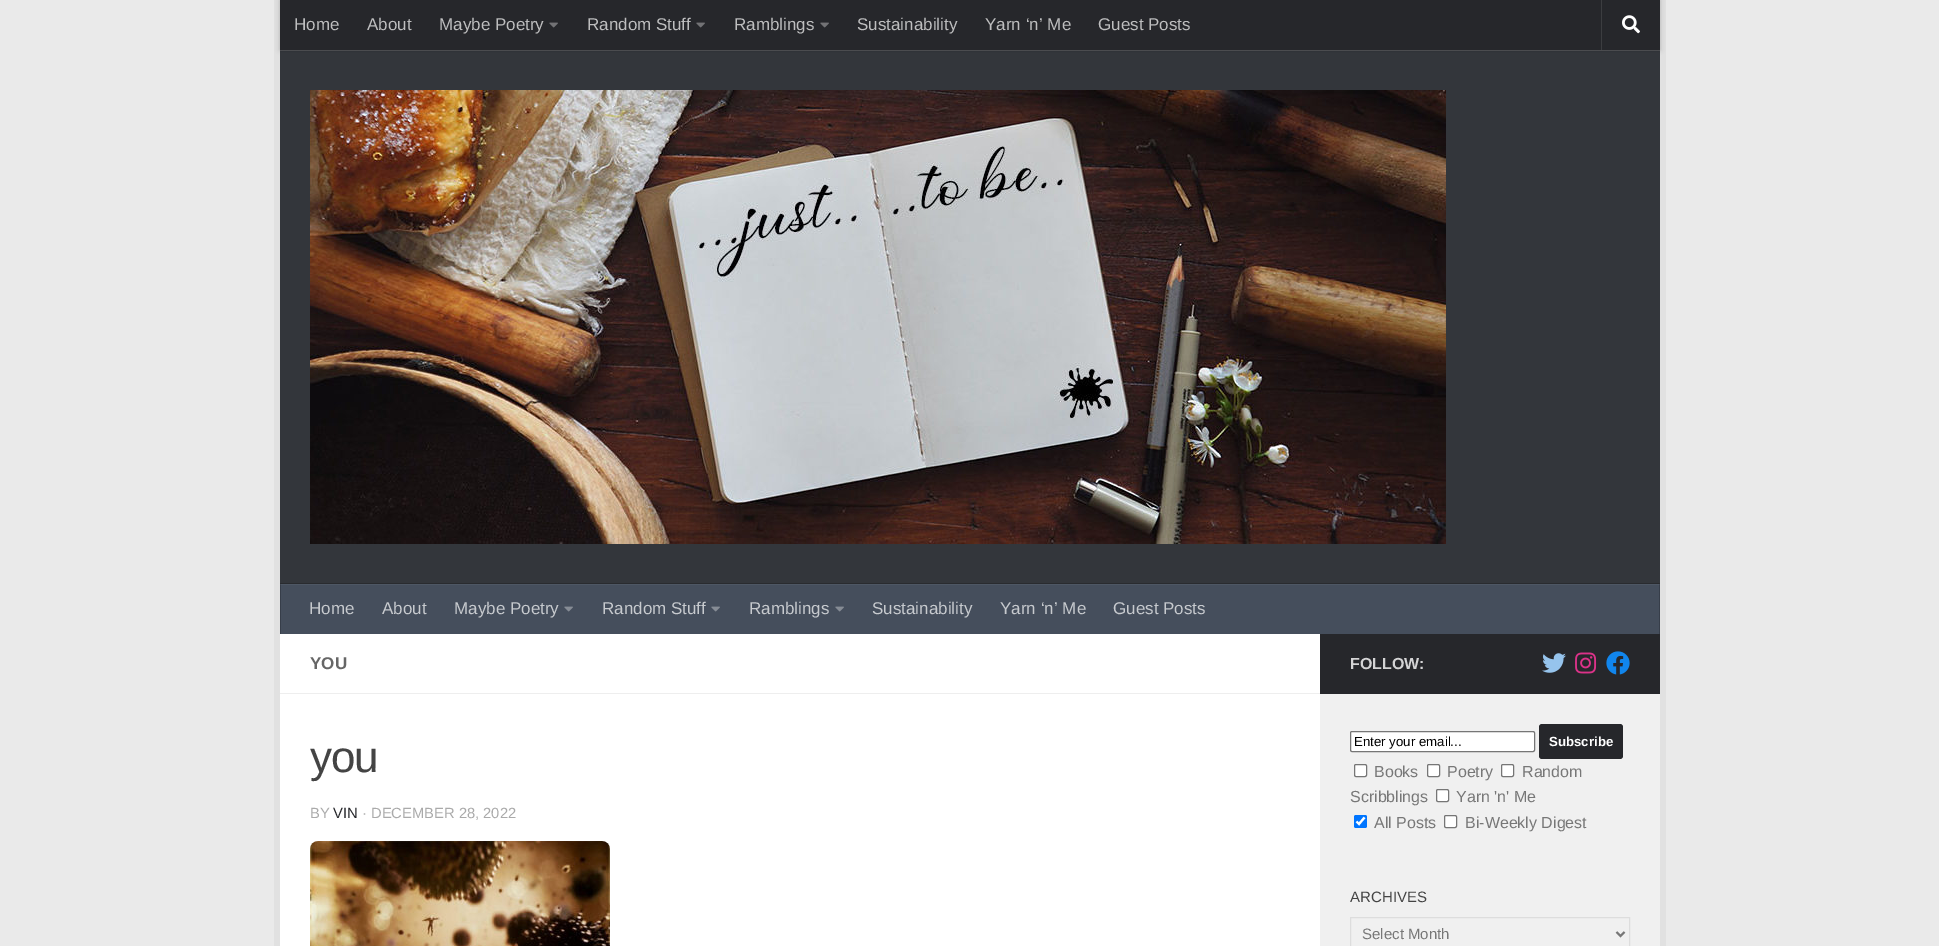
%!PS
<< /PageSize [1939 946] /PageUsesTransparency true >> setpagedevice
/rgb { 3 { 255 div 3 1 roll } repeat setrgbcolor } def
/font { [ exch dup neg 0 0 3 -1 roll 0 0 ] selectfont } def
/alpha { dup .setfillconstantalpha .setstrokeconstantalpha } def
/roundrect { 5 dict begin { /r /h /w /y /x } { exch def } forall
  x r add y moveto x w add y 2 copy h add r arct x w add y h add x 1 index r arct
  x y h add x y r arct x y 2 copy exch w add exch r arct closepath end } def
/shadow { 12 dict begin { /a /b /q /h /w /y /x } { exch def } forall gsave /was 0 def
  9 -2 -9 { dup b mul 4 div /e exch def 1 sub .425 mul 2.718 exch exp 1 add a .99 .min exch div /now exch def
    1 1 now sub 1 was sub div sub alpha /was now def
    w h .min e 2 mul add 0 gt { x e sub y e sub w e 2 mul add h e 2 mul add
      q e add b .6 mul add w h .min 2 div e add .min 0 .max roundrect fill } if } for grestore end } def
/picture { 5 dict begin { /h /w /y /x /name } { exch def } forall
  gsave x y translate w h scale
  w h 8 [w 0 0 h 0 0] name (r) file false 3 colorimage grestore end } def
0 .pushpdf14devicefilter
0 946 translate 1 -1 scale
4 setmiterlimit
234 234 234 rgb
0 0 1939 946 rectfill
[
  [274 0 6 946 225 225 225]
  [1660 0 6 946 225 225 225]
  [280 51 1380 532 51 54 59]
  [280 50 1380 1 82 84 88]
] { aload pop rgb rectfill } forall
0 0 0 rgb
280 0 1380 50 0 2.5 0.2 shadow
38 39 43 rgb
280 0 1380 50 rectfill
(img/1.rgb) 549 22 9 6 picture
(img/1.rgb) 696 22 9 6 picture
(img/1.rgb) 820 22 9 6 picture
60 61 64 rgb
1601 0 1 50 rectfill
(img/2.rgb) 1622 15 18 19 picture
(img/3.rgb) 310 90 1136 454 picture
[
  [280 583 1380 1 41 43 47]
  [281 585 1378 49 69 78 92]
  [280 584 1380 1 78 87 100]
  [1659 584 1 50 55 62 74]
  [1659 584 1 1 65 72 83]
  [280 584 1 50 55 62 74]
  [280 584 1 1 65 72 83]
] { aload pop rgb rectfill } forall
(img/4.rgb) 564 606 9 6 picture
(img/4.rgb) 711 606 9 6 picture
(img/4.rgb) 835 606 9 6 picture
255 255 255 rgb
280 634 1040 312 rectfill
238 238 238 rgb
280 693 1040 1 rectfill
(img/5.rgb) 310 841 300 105 picture
38 39 43 rgb
1320 634 340 60 rectfill
(img/6.rgb) 1542 653 24 20 picture
(img/7.rgb) 1575 652 22 22 picture
(img/8.rgb) 1606 651 24 24 picture
240 240 240 rgb
1320 694 340 252 rectfill
255 255 255 rgb
1350.5 731.5 184 20 1.5 roundrect gsave fill grestore
118 118 118 rgb
stroke
38 39 43 rgb
1539 724 84 35 3 roundrect fill
255 255 255 rgb
1354.5 764.5 12 12 1.5 roundrect gsave fill grestore
118 118 118 rgb
stroke
255 255 255 rgb
1427.5 764.5 12 12 1.5 roundrect gsave fill grestore
118 118 118 rgb
stroke
255 255 255 rgb
1501.5 764.5 12 12 1.5 roundrect gsave fill grestore
118 118 118 rgb
stroke
255 255 255 rgb
1436.5 789.5 12 12 1.5 roundrect gsave fill grestore
118 118 118 rgb
stroke
0 117 255 rgb
1354 815 13 13 2 roundrect fill
255 255 255 rgb
2.1 setlinewidth
1356.5 821.5 moveto 1359 824 lineto 1364.5 817.5 lineto stroke
1444.5 815.5 12 12 1.5 roundrect gsave fill grestore
118 118 118 rgb
1 setlinewidth
stroke
221 221 221 rgb
1350.5 917.5 279 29 rectstroke
119 119 119 rgb
2 setlinewidth
1616.5 932 moveto 1620.5 936 lineto 1624.5 932 lineto stroke
/LiberationSans-Regular 17 font
190 190 191 rgb
[
  [(Home) 294 30]
  [(About) 367 30]
  [(Maybe Poetry) 439 30]
  [(Random Stuff) 587 30]
  [(Ramblings) 734 30]
  [(Sustainability) 857 30]
  [(Yarn ‘n’ Me) 985 30]
  [(Guest Posts) 1098 30]
] { aload pop moveto show } forall
199 202 206 rgb
[
  [(Home) 309 614]
  [(About) 382 614]
  [(Maybe Poetry) 454 614]
  [(Random Stuff) 602 614]
  [(Ramblings) 749 614]
  [(Sustainability) 872 614]
  [(Yarn ‘n’ Me) 1000 614]
  [(Guest Posts) 1113 614]
] { aload pop moveto show } forall
/LiberationSans-Bold 17 font
102 102 102 rgb
310 669 moveto (YOU) show
/LiberationSans-Regular 44 font
68 68 68 rgb
310 772 moveto -1 0 (you) ashow
/LiberationSans-Regular 14.75 font
170 170 170 rgb
310 818 moveto (BY) show
38 39 43 rgb
333 818 moveto (VIN) show
170 170 170 rgb
362 818 moveto (· DECEMBER 28, 2022) show
/LiberationSans-Bold 16 font
212 212 213 rgb
1350 669 moveto (FOLLOW:) show
/LiberationSans-Regular 13.25 font
0 0 0 rgb
1354 746 moveto (Enter your email...) show
/LiberationSans-Bold 13.25 font
255 255 255 rgb
1549 746 moveto (Subscribe) show
/LiberationSans-Regular 16 font
119 119 119 rgb
[
  [(Books) 1374 777]
  [(Poetry) 1447 777]
  [(Random) 1522 777]
  [(Scribblings) 1350 802]
  [(Yarn 'n' Me) 1456 802]
  [(All Posts) 1374 828]
  [(Bi-Weekly Digest) 1465 828]
] { aload pop moveto show } forall
/LiberationSans-Regular 15 font
68 68 68 rgb
1350 902 moveto (ARCHIVES) show
119 119 119 rgb
1362 939 moveto (Select Month) show
.poppdf14devicefilter showpage
